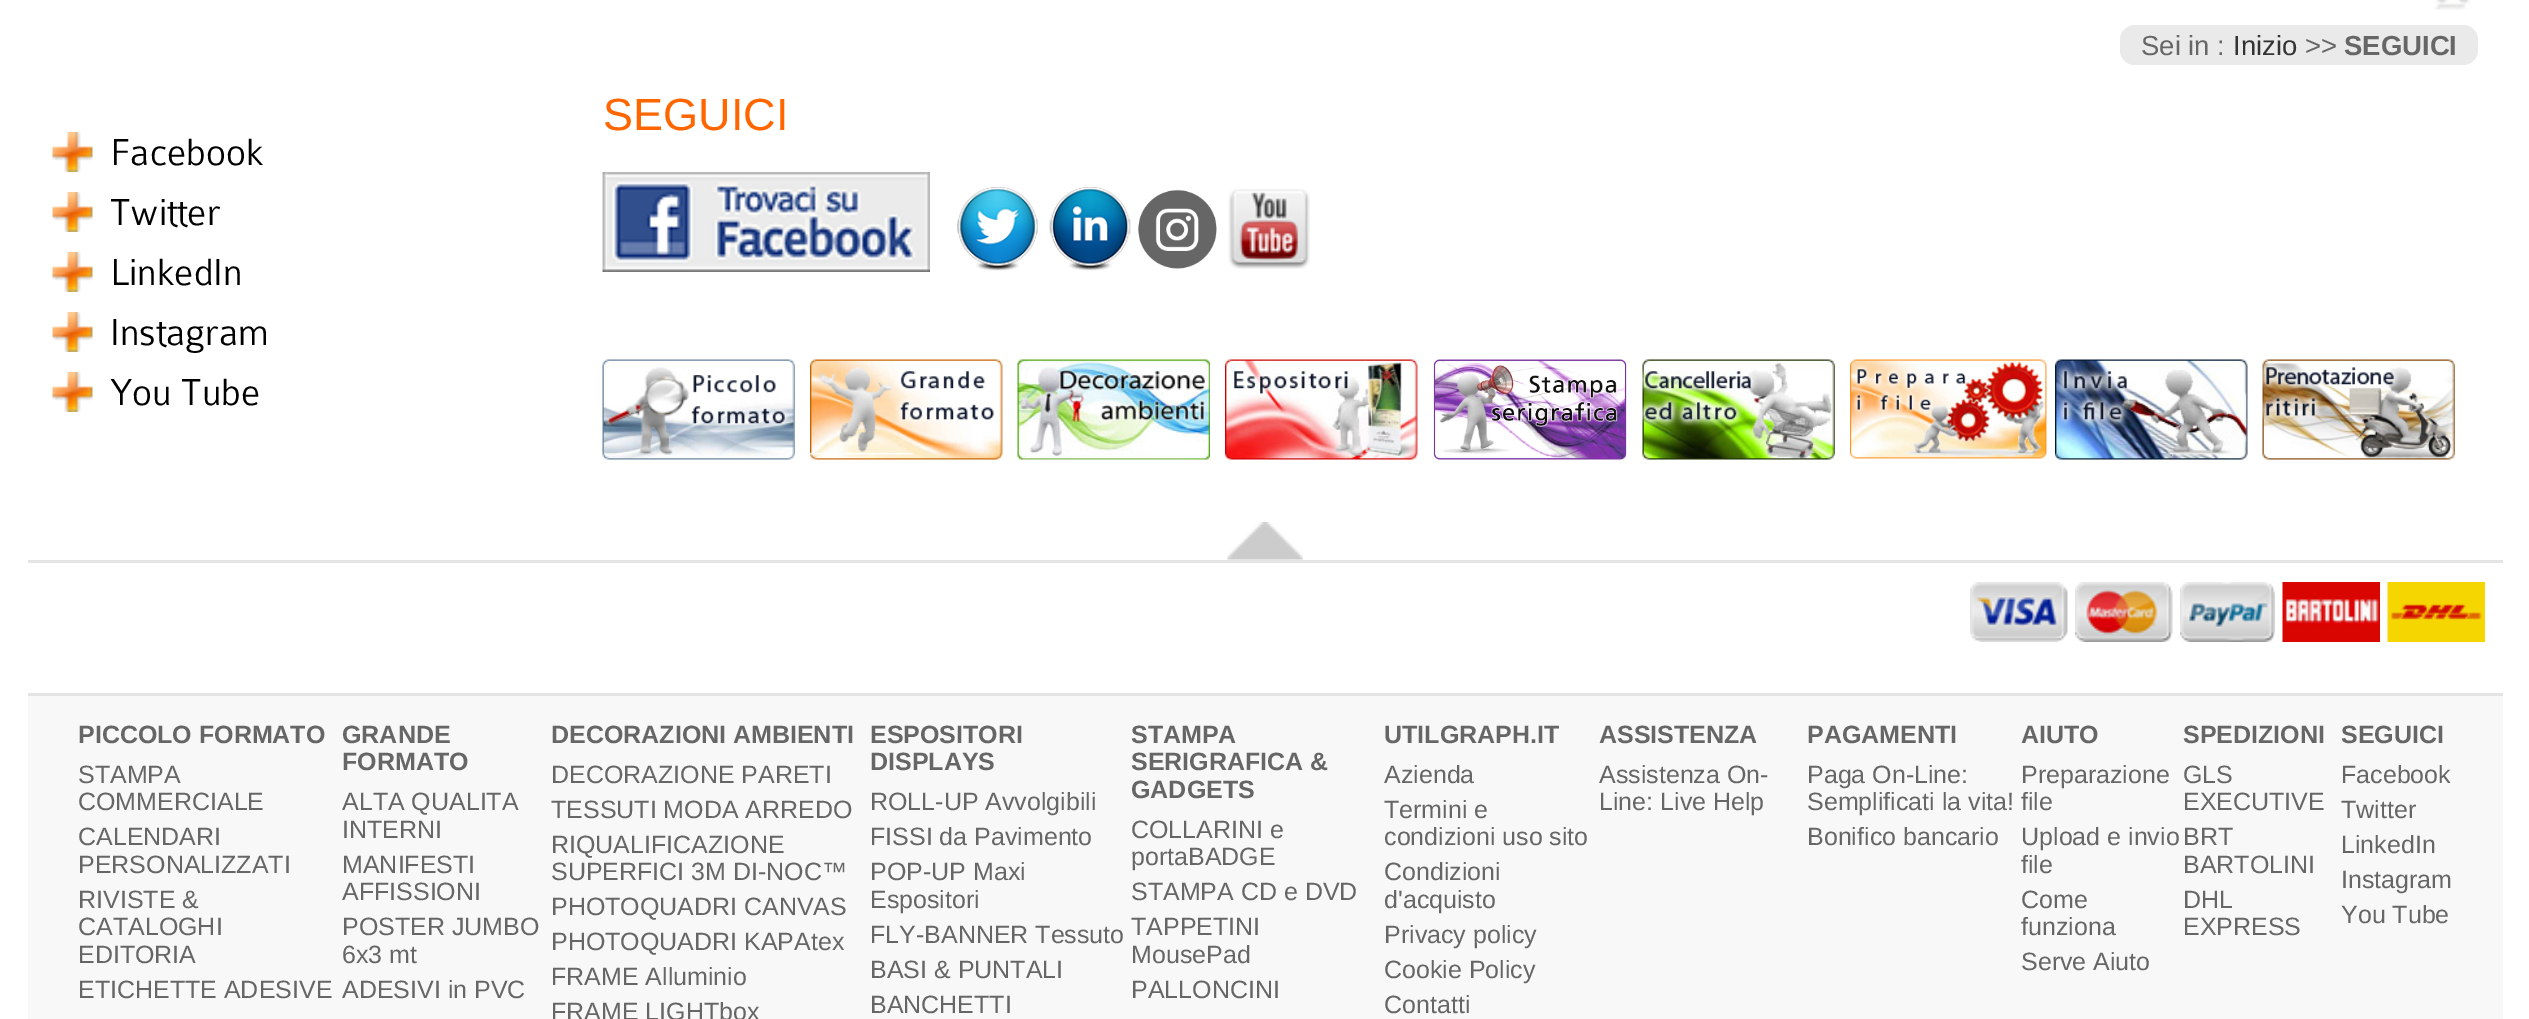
%!PS
<< /PageSize [2529 1019] >> setpagedevice
/rgb { 3 { 255 div 3 1 roll } repeat setrgbcolor } def
/font { [ exch dup neg 0 0 3 -1 roll 0 0 ] selectfont } def
/roundrect { 5 dict begin { /r /h /w /y /x } { exch def } forall
  x r add y moveto x w add y 2 copy h add r arct x w add y h add x 1 index r arct
  x y h add x y r arct x y 2 copy exch w add exch r arct closepath end } def
/picture { 5 dict begin { /h /w /y /x /name } { exch def } forall
  gsave x y translate w h scale
  w h 8 [w 0 0 h 0 0] name (r) file false 3 colorimage grestore end } def
0 1019 translate 1 -1 scale
4 setmiterlimit
255 255 255 rgb
0 0 2529 1019 rectfill
(img/1.rgb) 2434 0 39 10 picture
234 234 234 rgb
2120 25 358 40 15 roundrect fill
(img/2.rgb) 602 172 328 100 picture
(img/3.rgb) 957 187 81 84 picture
(img/4.rgb) 1049 187 82 84 picture
(img/5.rgb) 1138 189 79 80 picture
(img/6.rgb) 1228 189 82 80 picture
(img/7.rgb) 602 359 193 101 picture
(img/8.rgb) 810 359 193 101 picture
(img/9.rgb) 1017 359 193 101 picture
(img/10.rgb) 1225 359 193 101 picture
(img/11.rgb) 1433 359 194 101 picture
(img/12.rgb) 1642 359 193 101 picture
(img/13.rgb) 1850 359 197 100 picture
(img/14.rgb) 2055 359 193 101 picture
(img/15.rgb) 2262 359 193 101 picture
(img/16.rgb) 52 132 41 40 picture
(img/17.rgb) 52 192 41 40 picture
(img/17.rgb) 52 252 41 40 picture
(img/17.rgb) 52 312 41 40 picture
(img/17.rgb) 52 372 41 40 picture
(img/18.rgb) 1227 522 76 38 picture
229 229 229 rgb
28 560 2475 3 rectfill
(img/19.rgb) 1970 582 98 60 picture
(img/20.rgb) 2075 582 98 60 picture
(img/21.rgb) 2180 582 95 60 picture
(img/22.rgb) 2282 582 98 60 picture
(img/23.rgb) 2387 582 98 60 picture
248 248 248 rgb
28 696 2475 323 rectfill
228 228 228 rgb
28 693 2475 3 rectfill
/LiberationSans-Regular 27.5 font
102 102 102 rgb
2141 55 moveto (Sei in :) show
51 51 51 rgb
2233 55 moveto (Inizio) show
102 102 102 rgb
2305 55 moveto (>>) show
/LiberationSans-Bold 27.5 font
2344 55 moveto (SEGUICI) show
/LiberationSans-Regular 45 font
255 102 0 rgb
603 130 moveto (SEGUICI) show
/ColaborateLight-Light 40 font
0 0 0 rgb
[
  [(Facebook) 110 165]
  [(Twitter) 110 225]
  [(LinkedIn) 110 285]
  [(Instagram) 110 345]
  [(You Tube) 110 405]
] { aload pop moveto show } forall
/LiberationSans-Bold 25 font
102 102 102 rgb
78 743 moveto (PICCOLO FORMATO) show
/LiberationSans-Regular 25 font
[
  [(STAMPA) 78 783]
  [(COMMERCIALE) 78 810]
  [(CALENDARI) 78 845]
  [(PERSONALIZZATI) 78 873]
  [(RIVISTE &) 78 908]
  [(CATALOGHI) 78 935]
  [(EDITORIA) 78 963]
  [(ETICHETTE ADESIVE) 78 998]
] { aload pop moveto show } forall
/LiberationSans-Bold 25 font
342 743 moveto (GRANDE) show
342 770 moveto (FORMATO) show
/LiberationSans-Regular 25 font
[
  [(ALTA QUALITA) 342 810]
  [(INTERNI) 342 838]
  [(MANIFESTI) 342 873]
  [(AFFISSIONI) 342 900]
  [(POSTER JUMBO) 342 935]
  [(6x3 mt) 342 963]
  [(ADESIVI in PVC) 342 998]
] { aload pop moveto show } forall
/LiberationSans-Bold 25 font
551 743 moveto (DECORAZIONI AMBIENTI) show
/LiberationSans-Regular 25 font
[
  [(DECORAZIONE PARETI) 551 783]
  [(TESSUTI MODA ARREDO) 551 818]
  [(RIQUALIFICAZIONE) 551 853]
  [(SUPERFICI 3M DI-NOC™) 551 880]
  [(PHOTOQUADRI CANVAS) 551 915]
  [(PHOTOQUADRI KAPAtex) 551 950]
  [(FRAME Alluminio) 551 985]
  [(FRAME LIGHTbox) 551 1020]
] { aload pop moveto show } forall
/LiberationSans-Bold 25 font
870 743 moveto (ESPOSITORI) show
870 770 moveto (DISPLAYS) show
/LiberationSans-Regular 25 font
[
  [(ROLL-UP Avvolgibili) 870 810]
  [(FISSI da Pavimento) 870 845]
  [(POP-UP Maxi) 870 880]
  [(Espositori) 870 908]
  [(FLY-BANNER Tessuto) 870 943]
  [(BASI & PUNTALI) 870 978]
  [(BANCHETTI) 870 1013]
] { aload pop moveto show } forall
/LiberationSans-Bold 25 font
[
  [(STAMPA) 1131 743]
  [(SERIGRAFICA &) 1131 770]
  [(GADGETS) 1131 798]
] { aload pop moveto show } forall
/LiberationSans-Regular 25 font
[
  [(COLLARINI e) 1131 838]
  [(portaBADGE) 1131 865]
  [(STAMPA CD e DVD) 1131 900]
  [(TAPPETINI) 1131 935]
  [(MousePad) 1131 963]
  [(PALLONCINI) 1131 998]
] { aload pop moveto show } forall
/LiberationSans-Bold 25 font
1384 743 moveto (UTILGRAPH.IT) show
/LiberationSans-Regular 25 font
[
  [(Azienda) 1384 783]
  [(Termini e) 1384 818]
  [(condizioni uso sito) 1384 845]
  [(Condizioni) 1384 880]
  [(d'acquisto) 1384 908]
  [(Privacy policy) 1384 943]
  [(Cookie Policy) 1384 978]
  [(Contatti) 1384 1013]
] { aload pop moveto show } forall
/LiberationSans-Bold 25 font
1599 743 moveto (ASSISTENZA) show
/LiberationSans-Regular 25 font
1599 783 moveto (Assistenza On-) show
1599 810 moveto (Line: Live Help) show
/LiberationSans-Bold 25 font
1807 743 moveto (PAGAMENTI) show
/LiberationSans-Regular 25 font
[
  [(Paga On-Line:) 1807 783]
  [(Semplificati la vita! file) 1807 810]
  [(Bonifico bancario) 1807 845]
] { aload pop moveto show } forall
/LiberationSans-Bold 25 font
2021 743 moveto (AIUTO) show
/LiberationSans-Regular 25 font
[
  [(Preparazione) 2021 783]
  [(Upload e invio) 2021 845]
  [(file) 2021 873]
  [(Come) 2021 908]
  [(funziona) 2021 935]
  [(Serve Aiuto) 2021 970]
] { aload pop moveto show } forall
/LiberationSans-Bold 25 font
2183 743 moveto (SPEDIZIONI) show
/LiberationSans-Regular 25 font
[
  [(GLS) 2183 783]
  [(EXECUTIVE) 2183 810]
  [(BRT) 2183 845]
  [(BARTOLINI) 2183 873]
  [(DHL) 2183 908]
  [(EXPRESS) 2183 935]
] { aload pop moveto show } forall
/LiberationSans-Bold 25 font
2341 743 moveto (SEGUICI) show
/LiberationSans-Regular 25 font
[
  [(Facebook) 2341 783]
  [(Twitter) 2341 818]
  [(LinkedIn) 2341 853]
  [(Instagram) 2341 888]
  [(You Tube) 2341 923]
] { aload pop moveto show } forall
showpage
